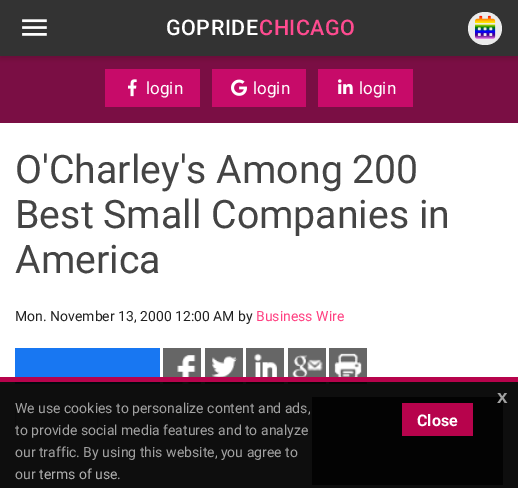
%!PS
<< /PageSize [518 488] /PageUsesTransparency true >> setpagedevice
/rgb { 3 { 255 div 3 1 roll } repeat setrgbcolor } def
/font { [ exch dup neg 0 0 3 -1 roll 0 0 ] selectfont } def
/alpha { dup .setfillconstantalpha .setstrokeconstantalpha } def
/roundrect { 5 dict begin { /r /h /w /y /x } { exch def } forall
  x r add y moveto x w add y 2 copy h add r arct x w add y h add x 1 index r arct
  x y h add x y r arct x y 2 copy exch w add exch r arct closepath end } def
/shadow { 12 dict begin { /a /b /q /h /w /y /x } { exch def } forall gsave /was 0 def
  9 -2 -9 { dup b mul 4 div /e exch def 1 sub .425 mul 2.718 exch exp 1 add a .99 .min exch div /now exch def
    1 1 now sub 1 was sub div sub alpha /was now def
    w h .min e 2 mul add 0 gt { x e sub y e sub w e 2 mul add h e 2 mul add
      q e add b .6 mul add w h .min 2 div e add .min 0 .max roundrect fill } if } for grestore end } def
/picture { 5 dict begin { /h /w /y /x /name } { exch def } forall
  gsave x y translate w h scale
  w h 8 [w 0 0 h 0 0] name (r) file false 3 colorimage grestore end } def
0 .pushpdf14devicefilter
0 488 translate 1 -1 scale
4 setmiterlimit
255 255 255 rgb
0 0 518 488 rectfill
[
  [0 56 518 67 122 14 68]
  [105 69 95 38 199 11 105]
  [212 69 94 38 199 11 105]
  [318 69 95 38 199 11 105]
] { aload pop rgb rectfill } forall
0 0 0 rgb
0 1 518 56 0 5 0.1 shadow
0 4 518 56 0 2.5 0.06 shadow
0 2 518 56 0 2 0.07 shadow
51 51 51 rgb
0 0 518 56 rectfill
(img/1.rgb) 22 19 25 17 picture
235 235 235 rgb
468 12 34 33 16.5 roundrect fill
(img/2.rgb) 475 15 21 24 picture
(img/3.rgb) 128 79 9 18 picture
(img/4.rgb) 231 79 16 17 picture
(img/5.rgb) 338 79 15 15 picture
24 119 242 rgb
15 348 145 36 rectfill
(img/6.rgb) 163 348 38 36 picture
(img/7.rgb) 205 348 38 36 picture
(img/8.rgb) 246 348 38 36 picture
(img/9.rgb) 288 348 38 36 picture
(img/10.rgb) 329 348 38 36 picture
187 187 187 rgb
15.5 408.5 82 20 rectstroke
0.09 alpha
[
  [0 382 518 106 21 21 21]
] { aload pop rgb rectfill } forall
0.95 alpha
[
  [0 382 518 15 2 2 2]
] { aload pop rgb rectfill } forall
1 alpha
[
  [0 377 518 5 183 3 76]
] { aload pop rgb rectfill } forall
0.95 alpha
[
  [0 397 518 91 2 2 2]
] { aload pop rgb rectfill } forall
1 alpha
[
  [312 397 191 88 3 3 3]
  [402 403 71 33 183 3 76]
] { aload pop rgb rectfill } forall
/Roboto-Medium 21.5 font
255 255 255 rgb
166 35 moveto 0.5 0 (GOPRIDE) ashow
255 75 144 rgb
259 35 moveto 0.5 0 (CHICAGO) ashow
/Roboto-Regular 17 font
255 255 255 rgb
[
  [(login) 146 94]
  [(login) 253 94]
  [(login) 359 94]
] { aload pop moveto show } forall
/Roboto-Regular 39.25 font
68 68 68 rgb
[
  [(O'Charley's Among 200) 15 183]
  [(Best Small Companies in) 15 228]
  [(America) 15 273]
] { aload pop moveto show } forall
/Roboto-Regular 14 font
33 33 33 rgb
15 321 moveto (Mon. November 13, 2000 12:00 AM by) show
255 64 129 rgb
256 321 moveto (Business Wire) show
/LiberationSans-Bold 19 font
162 162 162 rgb
497 403 moveto (x) show
/Roboto-Regular 14 font
[
  [(We use cookies to personalize content and ads,) 15 413]
  [(to provide social media features and to analyze) 15 435]
  [(our traffic. By using this website, you agree to) 15 457]
  [(our) 15 479]
] { aload pop moveto show } forall
175 175 175 rgb
39 479 moveto (terms of use) show
162 162 162 rgb
117 479 moveto (.) show
/Roboto-Bold 16 font
255 255 255 rgb
417 426 moveto (Close) show
.poppdf14devicefilter showpage
